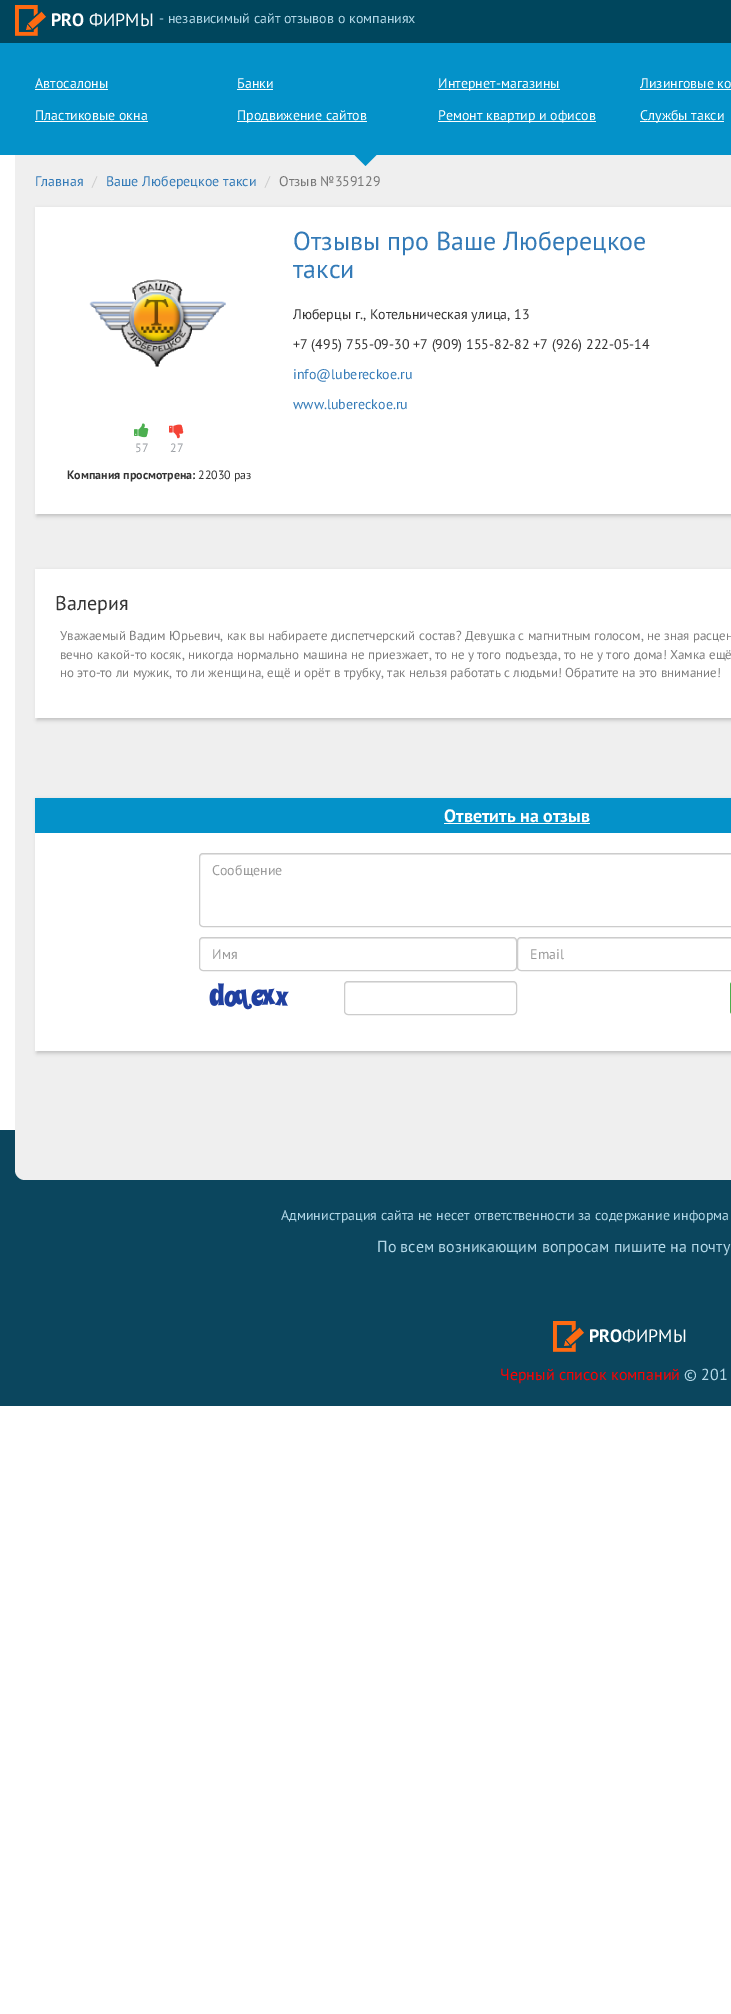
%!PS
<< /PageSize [731 2014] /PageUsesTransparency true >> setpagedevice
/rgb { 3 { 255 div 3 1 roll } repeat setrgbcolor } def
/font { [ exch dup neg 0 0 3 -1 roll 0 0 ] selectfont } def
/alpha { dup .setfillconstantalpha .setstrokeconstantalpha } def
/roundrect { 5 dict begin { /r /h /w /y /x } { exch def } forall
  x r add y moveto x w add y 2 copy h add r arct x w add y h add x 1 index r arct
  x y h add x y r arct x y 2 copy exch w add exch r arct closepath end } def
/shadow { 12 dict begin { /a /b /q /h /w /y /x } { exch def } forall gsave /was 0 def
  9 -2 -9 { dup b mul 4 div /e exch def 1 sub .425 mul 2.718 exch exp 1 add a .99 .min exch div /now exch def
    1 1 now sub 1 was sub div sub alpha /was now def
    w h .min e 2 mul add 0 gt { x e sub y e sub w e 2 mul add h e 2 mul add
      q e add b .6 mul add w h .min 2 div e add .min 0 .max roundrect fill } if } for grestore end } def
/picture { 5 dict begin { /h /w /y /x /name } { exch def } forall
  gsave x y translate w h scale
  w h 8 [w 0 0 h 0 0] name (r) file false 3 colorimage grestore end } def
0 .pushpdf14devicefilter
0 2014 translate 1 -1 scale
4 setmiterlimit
255 255 255 rgb
0 0 731 2014 rectfill
0 70 93 rgb
0 0 731 43 rectfill
(img/1.rgb) 15 5 31 31 picture
[
  [0 43 731 112 4 146 201]
  [35 89 73 1 255 255 255]
  [237 89 36 1 255 255 255]
  [438 89 122 1 255 255 255]
  [640 89 91 1 255 255 255]
  [35 121 113 1 255 255 255]
  [237 121 130 1 255 255 255]
  [438 121 158 1 255 255 255]
  [640 121 84 1 255 255 255]
  [0 1130 25 50 11 70 94]
] { aload pop rgb rectfill } forall
239 239 239 rgb
15 155 moveto 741 155 lineto 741 1170 lineto 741 1175.5 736.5 1180 731 1180 curveto 25 1180 lineto 19.5 1180 15 1175.5 15 1170 curveto closepath fill
4 146 201 rgb
365.5 143.5 moveto 377 154.5 lineto 365.5 166 lineto 354 154.5 lineto closepath fill
0 0 0 rgb
37 209 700 307 0 2 0.2 shadow
255 255 255 rgb
35 207 696 307 rectfill
(img/2.rgb) 89 279 137 88 picture
(img/3.rgb) 134 423 15 15 picture
(img/4.rgb) 169 424 15 15 picture
0 0 0 rgb
37 571 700 149 0 2 0.2 shadow
255 255 255 rgb
35 569 696 149 rectfill
0 0 0 rgb
37 800 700 253 0 2 0.2 shadow
[
  [35 833 696 218 255 255 255]
  [35 798 696 35 4 146 201]
  [444 823 146 1 255 255 255]
] { aload pop rgb rectfill } forall
236 236 236 rgb
203 855 moveto 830 855 lineto 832 855 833 856 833 858 curveto 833 857 lineto 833 855 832 854 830 854 curveto 203 854 lineto 201 854 200 855 200 857 curveto 200 858 lineto 200 856 201 855 203 855 curveto closepath fill
204 204 204 rgb
199.5 853.5 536 73 3.5 roundrect stroke
236 236 236 rgb
203 939 moveto 513 939 lineto 515 939 516 940 516 942 curveto 515 939 lineto 514 938 lineto 203 938 lineto 201 938 200 940 200 942 curveto 200 940 201 939 203 939 curveto closepath fill
204 204 204 rgb
199.5 937.5 317 33 3.5 roundrect stroke
236 236 236 rgb
521 939 moveto 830 939 lineto 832 939 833 940 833 942 curveto 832 939 lineto 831 938 lineto 521 938 lineto 519 938 518 940 518 942 curveto 518 940 519 939 521 939 curveto closepath fill
204 204 204 rgb
517.5 937.5 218 33 3.5 roundrect stroke
(img/5.rgb) 209 983 80 27 picture
236 236 236 rgb
348 983 moveto 513 983 lineto 515 983 516 984 516 986 curveto 516 985 lineto 516 983 515 982 513 982 curveto 348 982 lineto 346 982 345 983 345 985 curveto 345 986 lineto 345 984 346 983 348 983 curveto closepath fill
204 204 204 rgb
344.5 981.5 172 33 3.5 roundrect stroke
76 174 76 rgb
730.5 981.5 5 33 3.5 roundrect stroke
11 70 94 rgb
0 1180 731 226 rectfill
(img/6.rgb) 553 1321 31 31 picture
/PTSans-Bold 18 font
255 255 255 rgb
51 26 moveto (PRO) show
/PTSans-Regular 18 font
89 26 moveto (ФИРМЫ) show
/PTSans-Regular 14 font
179 216 232 rgb
159 23 moveto (- независимый сайт отзывов о компаниях) show
255 255 255 rgb
[
  [(Автосалоны) 35 88]
  [(Банки) 237 88]
  [(Интернет-магазины) 438 88]
  [(Лизинговые ко) 640 88]
  [(Пластиковые окна) 35 120]
  [(Продвижение сайтов) 237 120]
  [(Ремонт квартир и офисов) 438 120]
  [(Службы такси) 640 120]
] { aload pop moveto show } forall
51 122 183 rgb
35 186 moveto (Главная) show
204 204 204 rgb
92 186 moveto (/) show
51 122 183 rgb
106 186 moveto (Ваше Люберецкое такси) show
204 204 204 rgb
265 186 moveto (/) show
119 119 119 rgb
279 186 moveto (Отзыв №359129) show
/PTSans-Regular 26 font
51 122 183 rgb
293 250 moveto (Отзывы про Ваше Люберецкое) show
293 278 moveto (такси) show
/PTSans-Regular 14 font
51 51 51 rgb
293 319 moveto (Люберцы г., Котельническая улица, 13) show
293 349 moveto (+7 \(495\) 755-09-30 +7 \(909\) 155-82-82 +7 \(926\) 222-05-14) show
51 122 183 rgb
293 379 moveto (info@lubereckoe.ru) show
293 409 moveto (www.lubereckoe.ru) show
/PTSans-Regular 12 font
156 160 165 rgb
135 452 moveto (57) show
170 452 moveto (27) show
/PTSans-Bold 12 font
51 51 51 rgb
67 479 moveto (Компания просмотрена:) show
/PTSans-Regular 12 font
198 479 moveto (22030 раз) show
/PTSans-Regular 20 font
55 610 moveto (Валерия) show
/PTSans-Regular 13 font
126 126 126 rgb
[
  [(Уважаемый Вадим Юрьевич, как вы набираете диспетчерский состав? Девушка с магнитным голосом, не зная расцен) 60 640]
  [(вечно какой-то косяк, никогда нормально машина не приезжает, то не у того подъезда, то не у того дома! Хамка ещё) 60 659]
  [(но это-то ли мужик, то ли женщина, ещё и орёт в трубку, так нельзя работать с людьми! Обратите на это внимание!) 60 677]
] { aload pop moveto show } forall
/PTSans-Bold 18 font
255 255 255 rgb
444 822 moveto (Ответить на отзыв) show
/PTSans-Regular 14 font
153 153 153 rgb
[
  [(Сообщение) 212 875]
  [(Имя) 212 959]
  [(Email) 530 959]
] { aload pop moveto show } forall
179 216 232 rgb
281 1220 moveto (Администрация сайта не несет ответственности за содержание информа) show
/PTSans-Regular 16 font
377 1252 moveto (По всем возникающим вопросам пишите на почту) show
/PTSans-Bold 18 font
255 255 255 rgb
589 1342 moveto (PRO) show
/PTSans-Regular 18 font
622 1342 moveto (ФИРМЫ) show
/PTSans-Regular 16 font
255 0 0 rgb
500 1380 moveto (Черный список компаний) show
179 216 232 rgb
684 1380 moveto (© 201) show
.poppdf14devicefilter showpage
